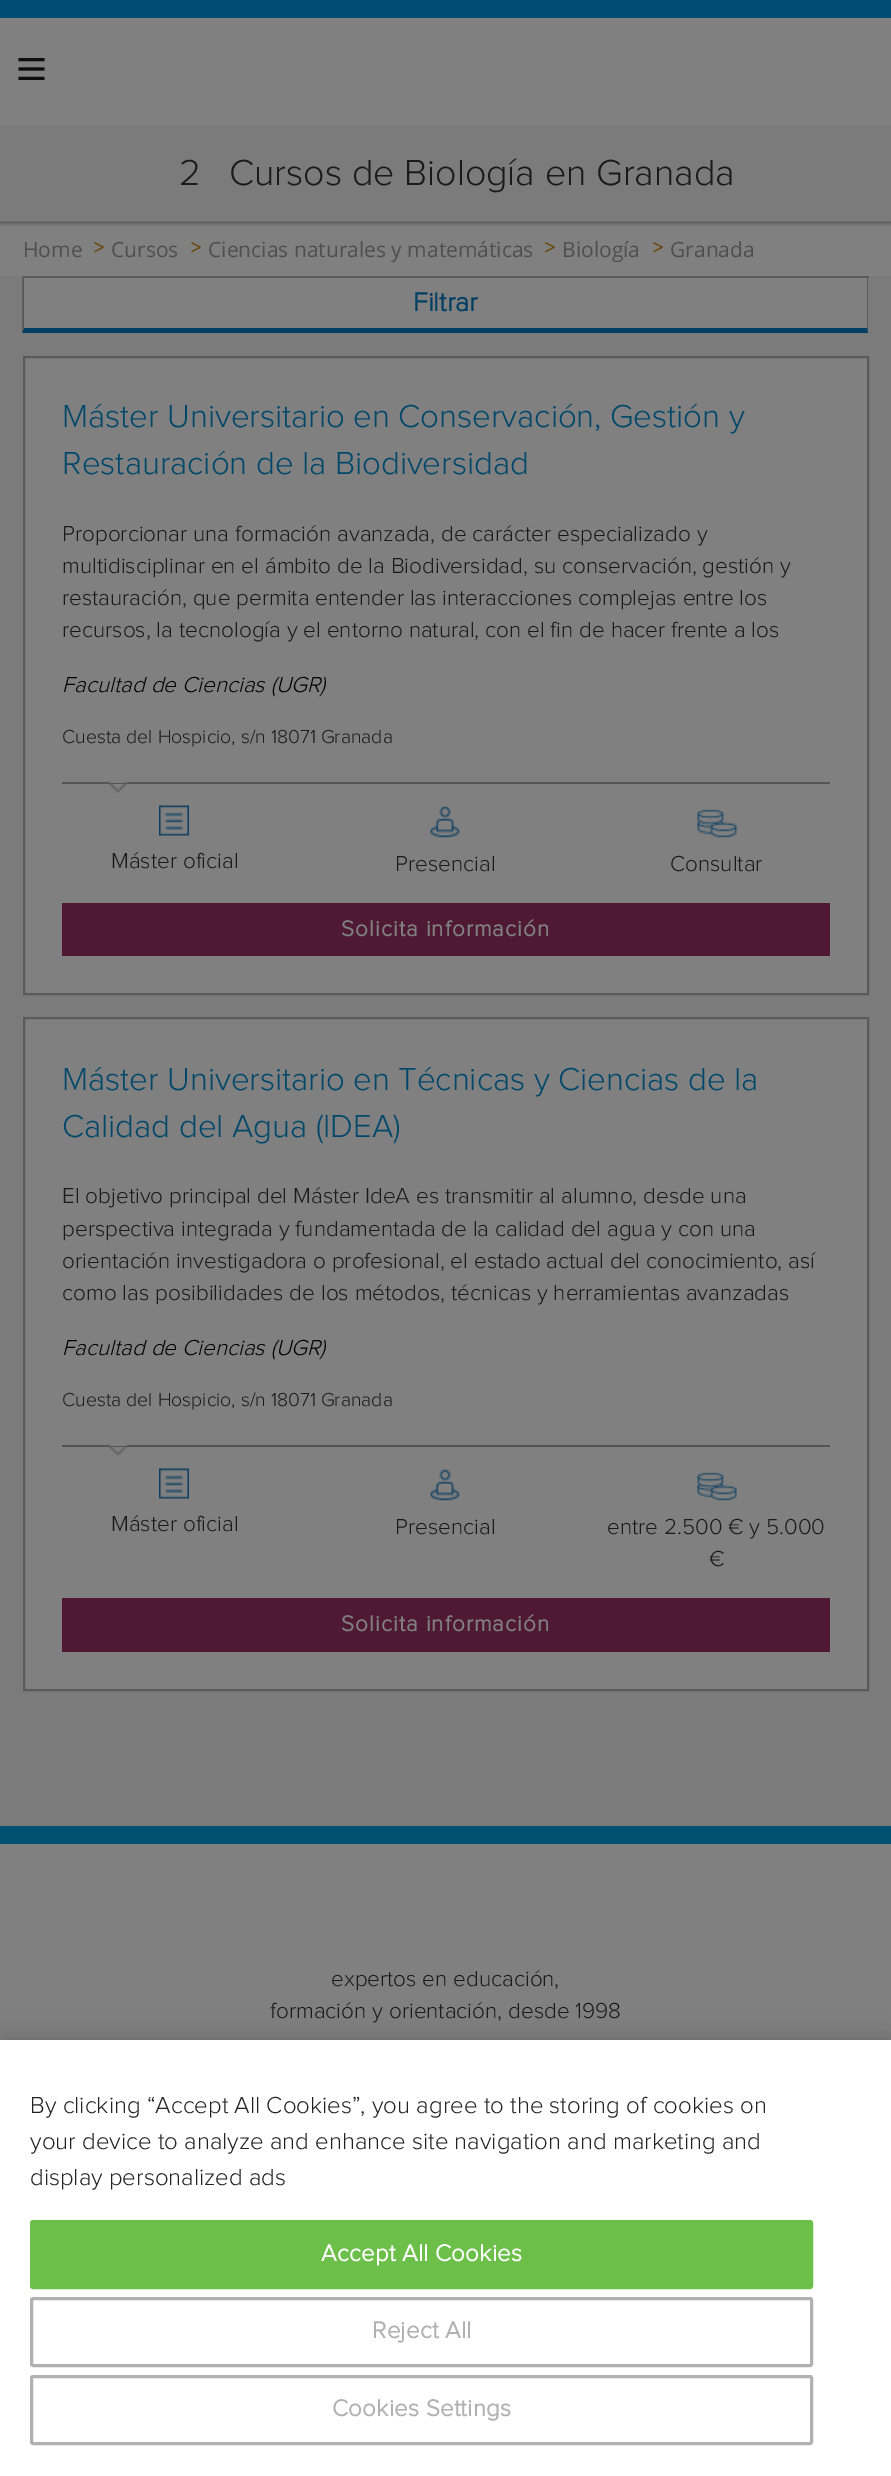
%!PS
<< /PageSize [891 2476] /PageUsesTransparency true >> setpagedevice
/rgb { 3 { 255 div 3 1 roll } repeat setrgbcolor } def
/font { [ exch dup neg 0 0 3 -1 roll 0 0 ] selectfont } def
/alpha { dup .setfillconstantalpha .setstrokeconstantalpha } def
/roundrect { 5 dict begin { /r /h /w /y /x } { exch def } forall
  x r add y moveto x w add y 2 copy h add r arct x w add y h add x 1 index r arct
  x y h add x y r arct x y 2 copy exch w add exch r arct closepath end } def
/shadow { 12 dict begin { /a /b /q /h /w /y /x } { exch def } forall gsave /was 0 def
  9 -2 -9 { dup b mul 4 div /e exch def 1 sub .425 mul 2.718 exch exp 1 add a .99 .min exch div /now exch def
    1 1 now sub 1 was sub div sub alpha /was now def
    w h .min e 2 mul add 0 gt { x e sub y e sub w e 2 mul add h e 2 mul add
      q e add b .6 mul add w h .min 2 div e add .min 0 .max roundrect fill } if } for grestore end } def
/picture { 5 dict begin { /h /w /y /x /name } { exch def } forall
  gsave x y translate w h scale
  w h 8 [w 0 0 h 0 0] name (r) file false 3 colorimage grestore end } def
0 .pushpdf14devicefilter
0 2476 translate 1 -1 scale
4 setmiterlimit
123 123 123 rgb
0 0 891 2476 rectfill
128 128 128 rgb
0 222 891 54 rectfill
0 0 0 rgb
0 128 891 96 0 2 0.25 shadow
128 128 128 rgb
0 18 891 108 rectfill
0 75 115 rgb
0 0 891 18 rectfill
(img/1.rgb) 18 58 27 22 picture
[
  [0 126 891 96 123 123 123]
] { aload pop rgb rectfill } forall
0.1 alpha
[
  [0 221 891 2 0 0 0]
] { aload pop rgb rectfill } forall
1 alpha
[
  [24 278 843 50 128 128 128]
  [23 276 846 2 90 90 90]
] { aload pop rgb rectfill } forall
868 276 moveto 868 333 lineto 867 328 lineto 867 278 lineto closepath fill
3 62 99 rgb
868 333 moveto 22 333 lineto 24 328 lineto 867 328 lineto closepath fill
90 90 90 rgb
22 333 moveto 22 276 lineto 24 278 lineto 24 328 lineto closepath fill
128 128 128 rgb
24 357 moveto 868 357 lineto 868 994 lineto 24 994 lineto closepath gsave fill grestore
90 90 90 rgb
2 setlinewidth
stroke
84 84 84 rgb
62 782 768 2 rectfill
128 128 128 rgb
108 782 20 1 rectfill
(img/2.rgb) 108 781 20 12 picture
(img/3.rgb) 159 805 30 31 picture
(img/4.rgb) 430 806 30 32 picture
(img/5.rgb) 697 809 40 29 picture
79 24 52 rgb
62 903 768 53 rectfill
128 128 128 rgb
24 1018 moveto 868 1018 lineto 868 1690 lineto 24 1690 lineto closepath gsave fill grestore
90 90 90 rgb
stroke
84 84 84 rgb
62 1445 768 2 rectfill
128 128 128 rgb
108 1445 20 1 rectfill
(img/2.rgb) 108 1444 20 12 picture
(img/3.rgb) 159 1468 30 31 picture
(img/4.rgb) 430 1469 30 32 picture
(img/5.rgb) 697 1472 40 29 picture
[
  [62 1598 768 54 79 24 52]
  [0 1844 891 196 128 128 128]
  [0 1826 891 18 0 80 114]
] { aload pop rgb rectfill } forall
0 0 0 rgb
0 2040 891 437 0 13.5 0.2 shadow
255 255 255 rgb
0 2040 891 436 rectfill
108 192 74 rgb
31 2221 781 67 2 roundrect gsave fill grestore
stroke
177 177 177 rgb
3 setlinewidth
31.5 2298.5 780 67 1.5 roundrect stroke
31.5 2376.5 780 67 1.5 roundrect stroke
/ProximaNova-Light 37.5 font
26 26 26 rgb
179 185 moveto (2) show
229 185 moveto (Cursos de Biología en Granada) show
/OpenSans-Regular 21 font
79 79 79 rgb
23 257 moveto (Home) show
/ProximaNova-Bold 19.5 font
107 67 3 rgb
94 254 moveto (>) show
/OpenSans-Regular 21 font
79 79 79 rgb
111 257 moveto (Cursos) show
/ProximaNova-Bold 19.5 font
107 67 3 rgb
191 254 moveto (>) show
/OpenSans-Regular 21 font
79 79 79 rgb
208 257 moveto (Ciencias naturales y matemáticas) show
/ProximaNova-Bold 19.5 font
107 67 3 rgb
545 254 moveto (>) show
/OpenSans-Regular 21 font
79 79 79 rgb
562 257 moveto (Biología) show
/ProximaNova-Bold 19.5 font
107 67 3 rgb
653 254 moveto (>) show
/OpenSans-Regular 21 font
79 79 79 rgb
670 257 moveto (Granada) show
/ProximaNova-Bold 27 font
3 62 99 rgb
413 311 moveto (Filtrar) show
/ProximaNova-Light 33 font
0 71 106 rgb
62 427 moveto (Máster Universitario en Conservación, Gestión y) show
62 474 moveto (Restauración de la Biodiversidad) show
/ProximaNova-Light 22.5 font
26 26 26 rgb
[
  [(Proporcionar una formación avanzada, de carácter especializado y) 62 541]
  [(multidisciplinar en el ámbito de la Biodiversidad, su conservación, gestión y) 62 573]
  [(restauración, que permita entender las interacciones complejas entre los) 62 605]
  [(recursos, la tecnología y el entorno natural, con el fin de hacer frente a los) 62 637]
] { aload pop moveto show } forall
/ProximaNova-LightItalic 22.5 font
0 0 0 rgb
62 692 moveto (Facultad de Ciencias \(UGR\)) show
/ProximaNova-Light 19.5 font
26 26 26 rgb
62 743 moveto (Cuesta del Hospicio, s/n 18071 Granada) show
/ProximaNova-Light 22.5 font
[
  [(Máster oficial) 111 868]
  [(Presencial) 395 871]
  [(Consultar) 670 871]
] { aload pop moveto show } forall
/ProximaNova-Bold 22.5 font
128 128 128 rgb
341 936 moveto 1.05 0 (Solicita información) ashow
/ProximaNova-Light 33 font
0 71 106 rgb
62 1090 moveto (Máster Universitario en Técnicas y Ciencias de la) show
62 1137 moveto (Calidad del Agua \(IDEA\)) show
/ProximaNova-Light 22.5 font
26 26 26 rgb
[
  [(El objetivo principal del Máster IdeA es transmitir al alumno, desde una) 62 1203]
  [(perspectiva integrada y fundamentada de la calidad del agua y con una) 62 1236]
  [(orientación investigadora o profesional, el estado actual del conocimiento, así) 62 1268]
  [(como las posibilidades de los métodos, técnicas y herramientas avanzadas) 62 1300]
] { aload pop moveto show } forall
/ProximaNova-LightItalic 22.5 font
0 0 0 rgb
62 1355 moveto (Facultad de Ciencias \(UGR\)) show
/ProximaNova-Light 19.5 font
26 26 26 rgb
62 1406 moveto (Cuesta del Hospicio, s/n 18071 Granada) show
/ProximaNova-Light 22.5 font
[
  [(Máster oficial) 111 1531]
  [(Presencial) 395 1534]
  [(entre 2.500 € y 5.000) 607 1534]
  [(€) 709 1566]
] { aload pop moveto show } forall
/ProximaNova-Bold 22.5 font
128 128 128 rgb
341 1631 moveto 1.05 0 (Solicita información) ashow
/ProximaNova-Light 22.5 font
26 26 26 rgb
331 1986 moveto (expertos en educación,) show
270 2018 moveto (formación y orientación, desde 1998) show
/ProximaNova-Light 24 font
34 34 34 rgb
[
  [(By clicking “Accept All Cookies”, you agree to the storing of cookies on) 30 2113]
  [(your device to analyze and enhance site navigation and marketing and) 30 2149]
  [(display personalized ads) 30 2185]
] { aload pop moveto show } forall
/ProximaNova-Bold 24 font
255 255 255 rgb
321 2261 moveto 0.25 0 (Accept All Cookies) ashow
177 177 177 rgb
372 2338 moveto 0.25 0 (Reject All) ashow
332 2416 moveto 0.25 0 (Cookies Settings) ashow
.poppdf14devicefilter showpage
